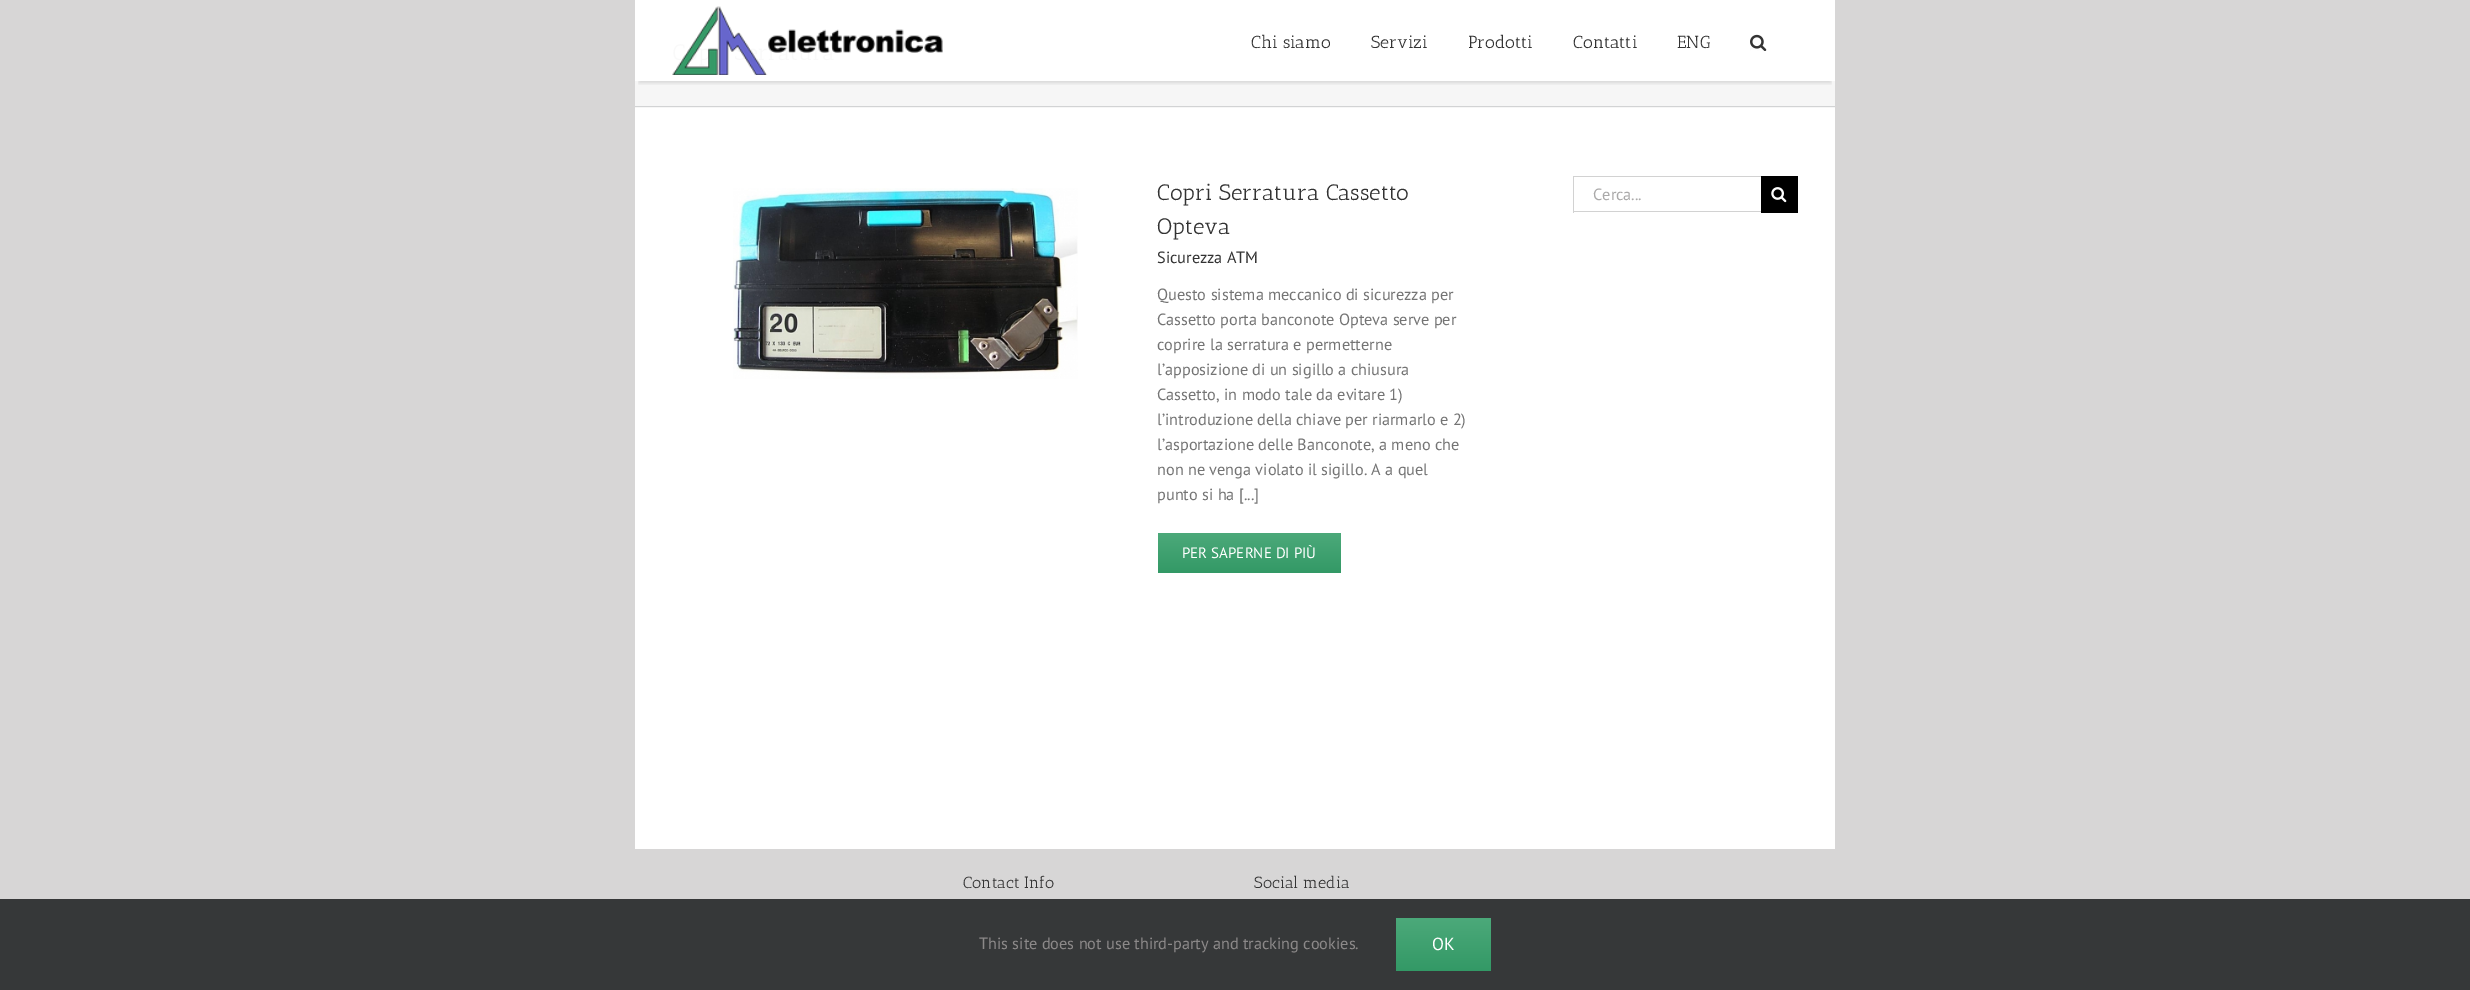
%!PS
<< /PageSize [2470 990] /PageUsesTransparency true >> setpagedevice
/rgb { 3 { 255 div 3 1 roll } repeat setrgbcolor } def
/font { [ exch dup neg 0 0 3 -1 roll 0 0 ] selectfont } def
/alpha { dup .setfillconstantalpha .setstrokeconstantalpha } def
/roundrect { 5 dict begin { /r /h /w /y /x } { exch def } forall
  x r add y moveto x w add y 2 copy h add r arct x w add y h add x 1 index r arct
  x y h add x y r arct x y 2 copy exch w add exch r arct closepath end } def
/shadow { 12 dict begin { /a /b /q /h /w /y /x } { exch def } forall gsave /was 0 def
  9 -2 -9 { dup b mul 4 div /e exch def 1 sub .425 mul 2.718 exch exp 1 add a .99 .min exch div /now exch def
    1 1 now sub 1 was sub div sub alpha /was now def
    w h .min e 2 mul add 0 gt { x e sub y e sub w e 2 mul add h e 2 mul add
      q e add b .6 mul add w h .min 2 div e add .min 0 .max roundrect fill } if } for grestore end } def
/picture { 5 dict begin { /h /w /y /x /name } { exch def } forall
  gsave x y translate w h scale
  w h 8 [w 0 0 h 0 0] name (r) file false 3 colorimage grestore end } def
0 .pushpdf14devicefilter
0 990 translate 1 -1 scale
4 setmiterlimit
215 214 214 rgb
0 0 2470 990 rectfill
[
  [635 81 1200 27 246 246 246]
  [635 0 1200 81 255 255 255]
  [635 106 1200 1 210 211 212]
] { aload pop rgb rectfill } forall
gsave
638 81 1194 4 rectclip
0 0 0 rgb
639 9 1192 74 0 2 0.12 shadow
grestore
(img/1.rgb) 672 6 271 69 picture
(img/2.rgb) 1750 34 17 17 picture
255 255 255 rgb
635 108 1200 741 rectfill
(img/3.rgb) 733 188 345 191 picture
gsave 1158 533 183 40 2.5 roundrect clip newpath
<< /ShadingType 2 /ColorSpace /DeviceRGB /Coords [1249 533 1249 573] /Extend [true true] /Function << /FunctionType 2 /Domain [0 1] /C0 [0.298 0.663 0.478] /C1 [0.2 0.6 0.4] /N 1 >> >> shfill grestore
[
  [1573 176 188 1 210 210 210]
  [1573 211 188 1 210 210 210]
  [1573 176 1 37 210 210 210]
  [1761 176 37 37 0 0 0]
] { aload pop rgb rectfill } forall
(img/4.rgb) 1771 187 16 16 picture
54 56 57 rgb
0 899 2470 91 rectfill
gsave 1396 918 95 53 2.5 roundrect clip newpath
<< /ShadingType 2 /ColorSpace /DeviceRGB /Coords [1444 918 1444 971] /Extend [true true] /Function << /FunctionType 2 /Domain [0 1] /C0 [0.298 0.663 0.478] /C1 [0.2 0.6 0.4] /N 1 >> >> shfill grestore
/AnticSlab-Regular 17.5 font
51 51 51 rgb
[
  [(Chi siamo) 1251 48]
  [(Servizi) 1371 48]
  [(Prodotti) 1468 48]
  [(Contatti) 1573 48]
  [(ENG) 1677 48]
] { aload pop moveto show } forall
/AnticSlab-Regular 22.5 font
1157 200 moveto (Copri Serratura Cassetto) show
1157 234 moveto (Opteva) show
/PTSans-Regular 16.25 font
1157 263 moveto (Sicurezza ATM) show
116 116 116 rgb
[
  [(Questo sistema meccanico di sicurezza per) 1157 300]
  [(Cassetto porta banconote Opteva serve per) 1157 325]
  [(coprire la serratura e permetterne) 1157 350]
  [(l’apposizione di un sigillo a chiusura) 1157 375]
  [(Cassetto, in modo tale da evitare 1\)) 1157 400]
  [(l’introduzione della chiave per riarmarlo e 2\)) 1157 425]
  [(l’asportazione delle Banconote, a meno che) 1157 450]
  [(non ne venga violato il sigillo. A a quel) 1157 475]
  [(punto si ha [...]) 1157 500]
] { aload pop moveto show } forall
/PTSans-Regular 15 font
255 255 255 rgb
1182 558 moveto (PER SAPERNE DI PIÙ) show
/PTSans-Regular 16.25 font
170 169 169 rgb
1593 200 moveto (Cerca...) show
/AnticSlab-Regular 16.25 font
51 51 51 rgb
963 888 moveto (Contact Info) show
1254 888 moveto (Social media) show
/PTSans-Regular 16.25 font
140 137 137 rgb
979 949 moveto (This site does not use third-party and tracking cookies.) show
/PTSans-Regular 17.5 font
255 255 255 rgb
1432 950 moveto (OK) show
.poppdf14devicefilter showpage
